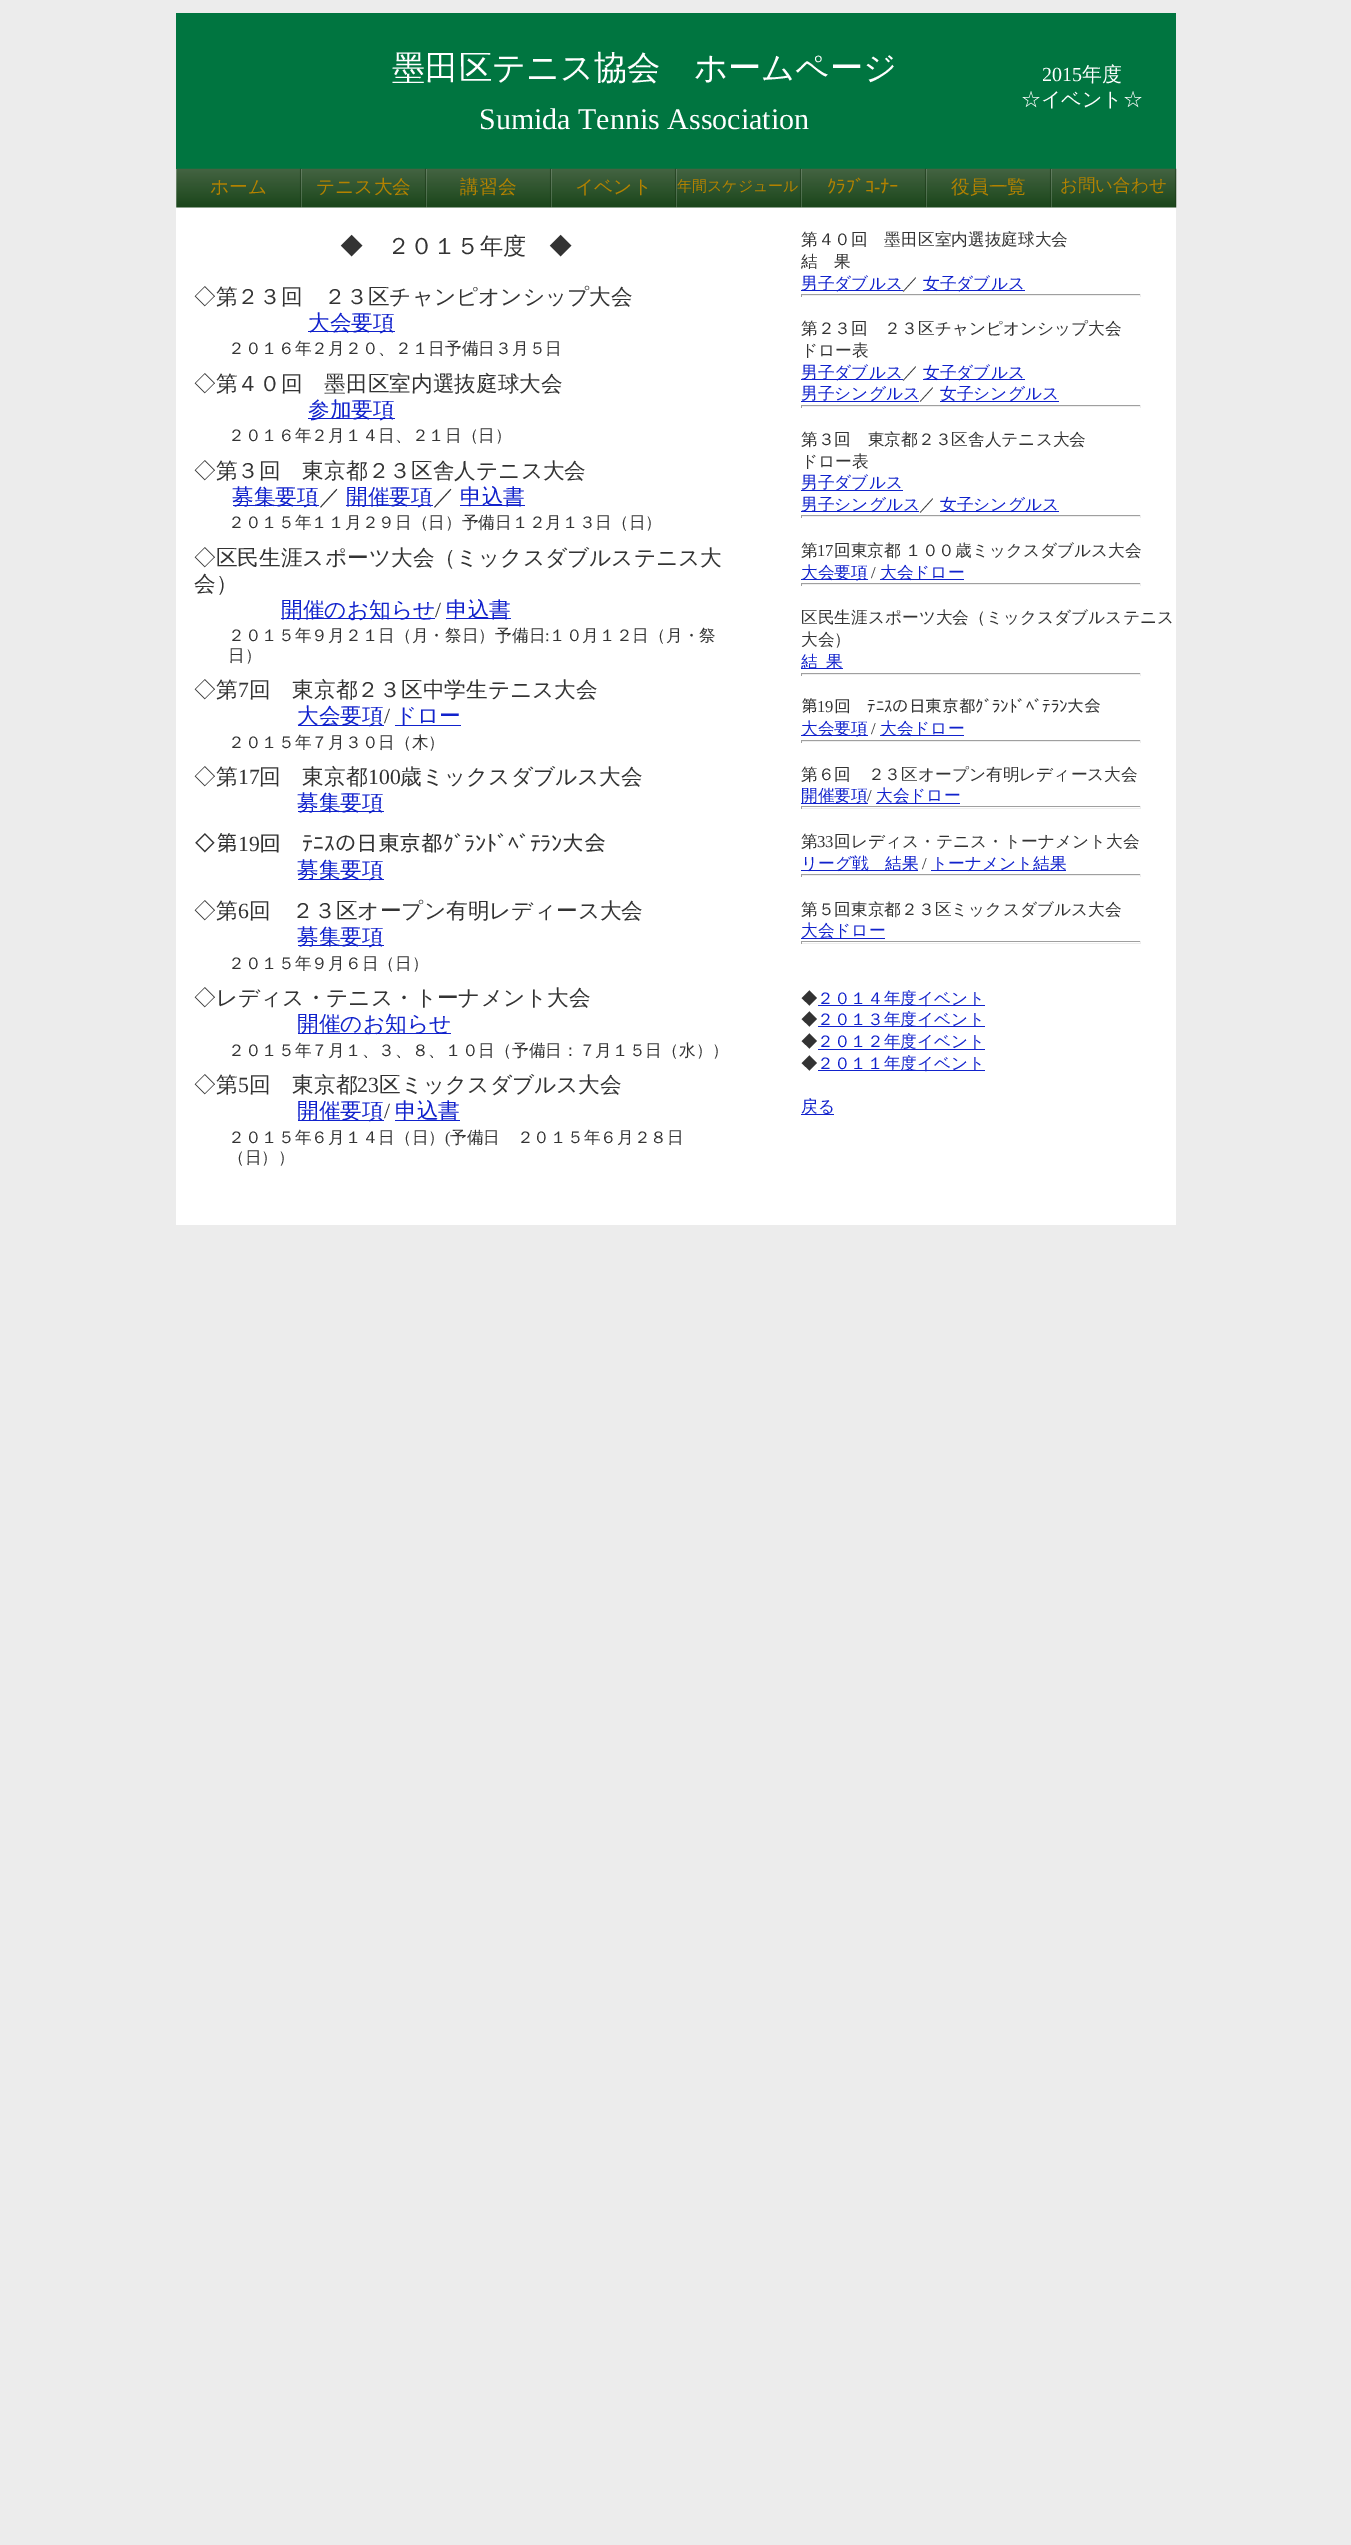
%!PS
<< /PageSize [1351 2545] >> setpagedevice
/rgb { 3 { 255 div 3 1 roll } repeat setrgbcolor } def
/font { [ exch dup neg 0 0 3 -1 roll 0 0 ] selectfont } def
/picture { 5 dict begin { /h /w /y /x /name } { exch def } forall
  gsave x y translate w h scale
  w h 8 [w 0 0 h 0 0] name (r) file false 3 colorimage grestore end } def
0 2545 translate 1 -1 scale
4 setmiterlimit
236 236 236 rgb
0 0 1351 2545 rectfill
255 255 255 rgb
176 169 1000 1056 rectfill
0 117 64 rgb
176 13 1000 156 rectfill
(img/1.rgb) 176 168 126 40 picture
(img/2.rgb) 301 168 126 40 picture
(img/2.rgb) 426 168 126 40 picture
(img/2.rgb) 551 168 126 40 picture
(img/2.rgb) 676 168 126 40 picture
(img/2.rgb) 801 168 126 40 picture
(img/2.rgb) 926 168 126 40 picture
(img/3.rgb) 1051 168 126 40 picture
[
  [308 331 87 1 17 34 204]
  [308 418 87 1 17 34 204]
  [233 505 86 1 17 34 204]
  [346 505 87 1 17 34 204]
  [460 505 65 1 17 34 204]
  [281 618 154 1 17 34 204]
  [446 618 65 1 17 34 204]
  [298 725 86 1 17 34 204]
  [395 725 66 1 17 34 204]
  [298 811 86 1 17 34 204]
  [298 879 86 1 17 34 204]
  [298 945 86 1 17 34 204]
  [298 1033 153 1 17 34 204]
  [298 1120 86 1 17 34 204]
  [395 1120 65 1 17 34 204]
  [801 290 102 1 17 34 204]
  [923 290 102 1 17 34 204]
  [801 294 340 1 159 159 159]
  [1140 294 1 3 238 238 238]
  [801 295 340 1 238 238 238]
  [801 294 1 3 159 159 159]
  [801 379 102 1 17 34 204]
  [923 379 102 1 17 34 204]
  [801 401 118 1 17 34 204]
  [940 401 119 1 17 34 204]
  [801 405 340 1 159 159 159]
  [1140 405 1 3 238 238 238]
  [801 406 340 1 238 238 238]
  [801 405 1 3 159 159 159]
  [801 490 102 1 17 34 204]
  [801 511 118 1 17 34 204]
  [940 511 119 1 17 34 204]
  [801 515 340 1 159 159 159]
  [1140 515 1 3 238 238 238]
  [801 516 340 1 238 238 238]
  [801 515 1 3 159 159 159]
  [801 579 67 1 17 34 204]
  [880 579 84 1 17 34 204]
  [801 583 340 1 159 159 159]
  [1140 583 1 3 238 238 238]
  [801 584 340 1 238 238 238]
  [801 583 1 3 159 159 159]
  [801 668 42 1 17 34 204]
  [801 673 340 1 159 159 159]
  [1140 673 1 3 238 238 238]
  [801 674 340 1 238 238 238]
  [801 673 1 3 159 159 159]
  [801 735 67 1 17 34 204]
  [880 735 84 1 17 34 204]
  [801 740 340 1 159 159 159]
  [1140 740 1 3 238 238 238]
  [801 741 340 1 238 238 238]
  [801 740 1 3 159 159 159]
  [801 803 67 1 17 34 204]
  [876 803 84 1 17 34 204]
  [801 806 340 1 159 159 159]
  [1140 806 1 3 238 238 238]
  [801 808 340 1 238 238 238]
  [801 806 1 3 159 159 159]
  [801 870 117 1 17 34 204]
  [931 870 135 1 17 34 204]
  [801 874 340 1 159 159 159]
  [1140 874 1 3 238 238 238]
  [801 875 340 1 238 238 238]
  [801 874 1 3 159 159 159]
  [801 938 84 1 17 34 204]
  [801 941 340 1 159 159 159]
  [1140 941 1 3 238 238 238]
  [801 943 340 1 238 238 238]
  [801 941 1 3 159 159 159]
  [818 1005 167 1 17 34 204]
  [818 1026 167 1 17 34 204]
  [818 1049 167 1 17 34 204]
  [818 1070 167 1 17 34 204]
  [801 1114 33 1 17 34 204]
] { aload pop rgb rectfill } forall
/WenQuanYiZenHei-Medium 33.3 font
255 255 255 rgb
392 79 moveto (墨田区テニス協会　ホームページ) show
/LiberationSerif-Regular 30 font
479 129 moveto (Sumida Tennis Association) show
/LiberationSerif-Regular 20 font
1042 81 moveto (2015) show
/WenQuanYiZenHei-Medium 20 font
1082 81 moveto (年度) show
1021 106 moveto (☆イベント☆) show
/WenQuanYiZenHei-Medium 18.75 font
179 130 0 rgb
[
  [(ホーム) 210 193]
  [(テニス大会) 316 193]
  [(講習会) 460 193]
  [(イベント) 575 193]
] { aload pop moveto show } forall
/WenQuanYiZenHei-Medium 15 font
677 191 moveto (年間スケジュール) show
/IPAPGothic-Regular 18.75 font
827 193 moveto (ｸﾗﾌﾞｺ) show
/LiberationSerif-Regular 18.75 font
874 193 moveto (-) show
/IPAPGothic-Regular 18.75 font
880 193 moveto (ﾅｰ) show
/WenQuanYiZenHei-Medium 18.75 font
951 193 moveto (役員一覧) show
/WenQuanYiZenHei-Medium 17.5 font
1060 191 moveto (お問い合わせ) show
/WenQuanYiZenHei-Medium 23.25 font
51 51 51 rgb
340 254 moveto (◆　２０１５年度　◆) show
/WenQuanYiZenHei-Medium 21.7 font
194 304 moveto (◇第２３回　２３区チャンピオンシップ大会) show
17 34 204 rgb
308 330 moveto (大会要項) show
/WenQuanYiZenHei-Medium 16.7 font
51 51 51 rgb
228 354 moveto (２０１６年２月２０、２１日予備日３月５日) show
/WenQuanYiZenHei-Medium 21.7 font
194 391 moveto (◇第４０回　墨田区室内選抜庭球大会) show
17 34 204 rgb
308 417 moveto (参加要項) show
/WenQuanYiZenHei-Medium 16.7 font
51 51 51 rgb
228 441 moveto (２０１６年２月１４日、２１日（日）) show
/WenQuanYiZenHei-Medium 21.7 font
194 478 moveto (◇第３回　東京都２３区舎人テニス大会) show
17 34 204 rgb
232 504 moveto (募集要項) show
51 51 51 rgb
319 504 moveto (／) show
17 34 204 rgb
346 504 moveto (開催要項) show
51 51 51 rgb
433 504 moveto (／) show
17 34 204 rgb
460 504 moveto (申込書) show
/WenQuanYiZenHei-Medium 16.7 font
51 51 51 rgb
228 528 moveto (２０１５年１１月２９日（日）予備日１２月１３日（日）) show
/WenQuanYiZenHei-Medium 21.7 font
194 565 moveto (◇区民生涯スポーツ大会（ミックスダブルステニス大) show
194 591 moveto (会）) show
17 34 204 rgb
281 617 moveto (開催のお知らせ) show
/LiberationSerif-Regular 21.7 font
51 51 51 rgb
435 617 moveto (/) show
/WenQuanYiZenHei-Medium 21.7 font
17 34 204 rgb
446 617 moveto (申込書) show
/WenQuanYiZenHei-Medium 16.7 font
51 51 51 rgb
228 641 moveto (２０１５年９月２１日（月・祭日）予備日) show
/LiberationSerif-Regular 16.7 font
545 641 moveto (:) show
/WenQuanYiZenHei-Medium 16.7 font
549 641 moveto (１０月１２日（月・祭) show
228 661 moveto (日）) show
/WenQuanYiZenHei-Medium 21.7 font
194 697 moveto (◇第) show
/LiberationSerif-Regular 21.7 font
238 697 moveto (7) show
/WenQuanYiZenHei-Medium 21.7 font
249 697 moveto (回　東京都２３区中学生テニス大会) show
17 34 204 rgb
297 723 moveto (大会要項) show
/LiberationSerif-Regular 21.7 font
51 51 51 rgb
384 723 moveto (/) show
/WenQuanYiZenHei-Medium 21.7 font
17 34 204 rgb
395 723 moveto (ドロー) show
/WenQuanYiZenHei-Medium 16.7 font
51 51 51 rgb
228 748 moveto (２０１５年７月３０日（木）) show
/WenQuanYiZenHei-Medium 21.7 font
194 784 moveto (◇第) show
/LiberationSerif-Regular 21.7 font
238 784 moveto (17) show
/WenQuanYiZenHei-Medium 21.7 font
259 784 moveto (回　東京都) show
/LiberationSerif-Regular 21.7 font
368 784 moveto (100) show
/WenQuanYiZenHei-Medium 21.7 font
400 784 moveto (歳ミックスダブルス大会) show
17 34 204 rgb
297 810 moveto (募集要項) show
/IPAPGothic-Regular 21.7 font
51 51 51 rgb
194 851 moveto (◇第) show
/LiberationSerif-Regular 21.7 font
238 851 moveto (19) show
/IPAPGothic-Regular 21.7 font
259 851 moveto (回　ﾃﾆｽの日東京都ｸﾞﾗﾝﾄﾞﾍﾞﾃﾗﾝ大会) show
/WenQuanYiZenHei-Medium 21.7 font
17 34 204 rgb
297 877 moveto (募集要項) show
51 51 51 rgb
194 918 moveto (◇第) show
/LiberationSerif-Regular 21.7 font
238 918 moveto (6) show
/WenQuanYiZenHei-Medium 21.7 font
249 918 moveto (回　２３区オープン有明レディース大会) show
17 34 204 rgb
297 944 moveto (募集要項) show
/WenQuanYiZenHei-Medium 16.7 font
51 51 51 rgb
228 969 moveto (２０１５年９月６日（日）) show
/WenQuanYiZenHei-Medium 21.7 font
194 1005 moveto (◇レディス・テニス・トーナメント大会) show
17 34 204 rgb
297 1031 moveto (開催のお知らせ) show
/WenQuanYiZenHei-Medium 16.7 font
51 51 51 rgb
228 1056 moveto (２０１５年７月１、３、８、１０日（予備日：７月１５日（水））) show
/WenQuanYiZenHei-Medium 21.7 font
194 1092 moveto (◇第) show
/LiberationSerif-Regular 21.7 font
238 1092 moveto (5) show
/WenQuanYiZenHei-Medium 21.7 font
249 1092 moveto (回　東京都) show
/LiberationSerif-Regular 21.7 font
357 1092 moveto (23) show
/WenQuanYiZenHei-Medium 21.7 font
379 1092 moveto (区ミックスダブルス大会) show
17 34 204 rgb
297 1118 moveto (開催要項) show
/LiberationSerif-Regular 21.7 font
51 51 51 rgb
384 1118 moveto (/) show
/WenQuanYiZenHei-Medium 21.7 font
17 34 204 rgb
395 1118 moveto (申込書) show
/WenQuanYiZenHei-Medium 16.7 font
51 51 51 rgb
228 1143 moveto (２０１５年６月１４日（日）) show
/LiberationSerif-Regular 16.7 font
445 1143 moveto (\() show
/WenQuanYiZenHei-Medium 16.7 font
[
  [(予備日　２０１５年６月２８日) 450 1143]
  [(（日））) 228 1163]
  [(第４０回　墨田区室内選抜庭球大会) 801 245]
  [(結　果) 801 267]
] { aload pop moveto show } forall
17 34 204 rgb
801 289 moveto (男子ダブルス) show
51 51 51 rgb
902 289 moveto (／) show
17 34 204 rgb
923 289 moveto (女子ダブルス) show
51 51 51 rgb
801 334 moveto (第２３回　２３区チャンピオンシップ大会) show
801 356 moveto (ドロー表) show
17 34 204 rgb
801 378 moveto (男子ダブルス) show
51 51 51 rgb
902 378 moveto (／) show
17 34 204 rgb
923 378 moveto (女子ダブルス) show
801 399 moveto (男子シングルス) show
51 51 51 rgb
919 399 moveto (／) show
17 34 204 rgb
940 399 moveto (女子シングルス) show
51 51 51 rgb
801 445 moveto (第３回　東京都２３区舎人テニス大会) show
801 467 moveto (ドロー表) show
17 34 204 rgb
801 488 moveto (男子ダブルス) show
801 510 moveto (男子シングルス) show
51 51 51 rgb
919 510 moveto (／) show
17 34 204 rgb
940 510 moveto (女子シングルス) show
51 51 51 rgb
801 556 moveto (第) show
/LiberationSerif-Regular 16.7 font
817 556 moveto (17) show
/WenQuanYiZenHei-Medium 16.7 font
834 556 moveto -1 0 32 (回東京都 １００歳ミックスダブルス大会) widthshow
17 34 204 rgb
801 578 moveto (大会要項) show
/LiberationSerif-Regular 16.7 font
51 51 51 rgb
871 578 moveto (/) show
/WenQuanYiZenHei-Medium 16.7 font
17 34 204 rgb
880 578 moveto (大会ドロー) show
51 51 51 rgb
801 623 moveto (区民生涯スポーツ大会（ミックスダブルステニス) show
801 645 moveto (大会）) show
17 34 204 rgb
801 667 moveto (結) show
826 667 moveto (果) show
/IPAPGothic-Regular 16.7 font
51 51 51 rgb
801 712 moveto (第) show
/LiberationSerif-Regular 16.7 font
817 712 moveto (19) show
/IPAPGothic-Regular 16.7 font
834 712 moveto (回　ﾃﾆｽの日東京都ｸﾞﾗﾝﾄﾞﾍﾞﾃﾗﾝ大会) show
/WenQuanYiZenHei-Medium 16.7 font
17 34 204 rgb
801 734 moveto (大会要項) show
/LiberationSerif-Regular 16.7 font
51 51 51 rgb
871 734 moveto (/) show
/WenQuanYiZenHei-Medium 16.7 font
17 34 204 rgb
880 734 moveto (大会ドロー) show
51 51 51 rgb
801 780 moveto (第６回　２３区オープン有明レディース大会) show
17 34 204 rgb
801 801 moveto (開催要項) show
/LiberationSerif-Regular 16.7 font
51 51 51 rgb
867 801 moveto (/) show
/WenQuanYiZenHei-Medium 16.7 font
17 34 204 rgb
876 801 moveto (大会ドロー) show
51 51 51 rgb
801 847 moveto (第) show
/LiberationSerif-Regular 16.7 font
817 847 moveto (33) show
/WenQuanYiZenHei-Medium 16.7 font
834 847 moveto (回レディス・テニス・トーナメント大会) show
17 34 204 rgb
801 869 moveto (リーグ戦　結果) show
/LiberationSerif-Regular 16.7 font
51 51 51 rgb
922 869 moveto (/) show
/WenQuanYiZenHei-Medium 16.7 font
17 34 204 rgb
931 869 moveto (トーナメント結果) show
51 51 51 rgb
801 915 moveto (第５回東京都２３区ミックスダブルス大会) show
17 34 204 rgb
801 936 moveto (大会ドロー) show
51 51 51 rgb
801 1004 moveto (◆) show
17 34 204 rgb
817 1004 moveto (２０１４年度イベント) show
51 51 51 rgb
801 1025 moveto (◆) show
17 34 204 rgb
817 1025 moveto (２０１３年度イベント) show
51 51 51 rgb
801 1047 moveto (◆) show
17 34 204 rgb
817 1047 moveto (２０１２年度イベント) show
51 51 51 rgb
801 1069 moveto (◆) show
17 34 204 rgb
817 1069 moveto (２０１１年度イベント) show
801 1112 moveto (戻る) show
showpage
